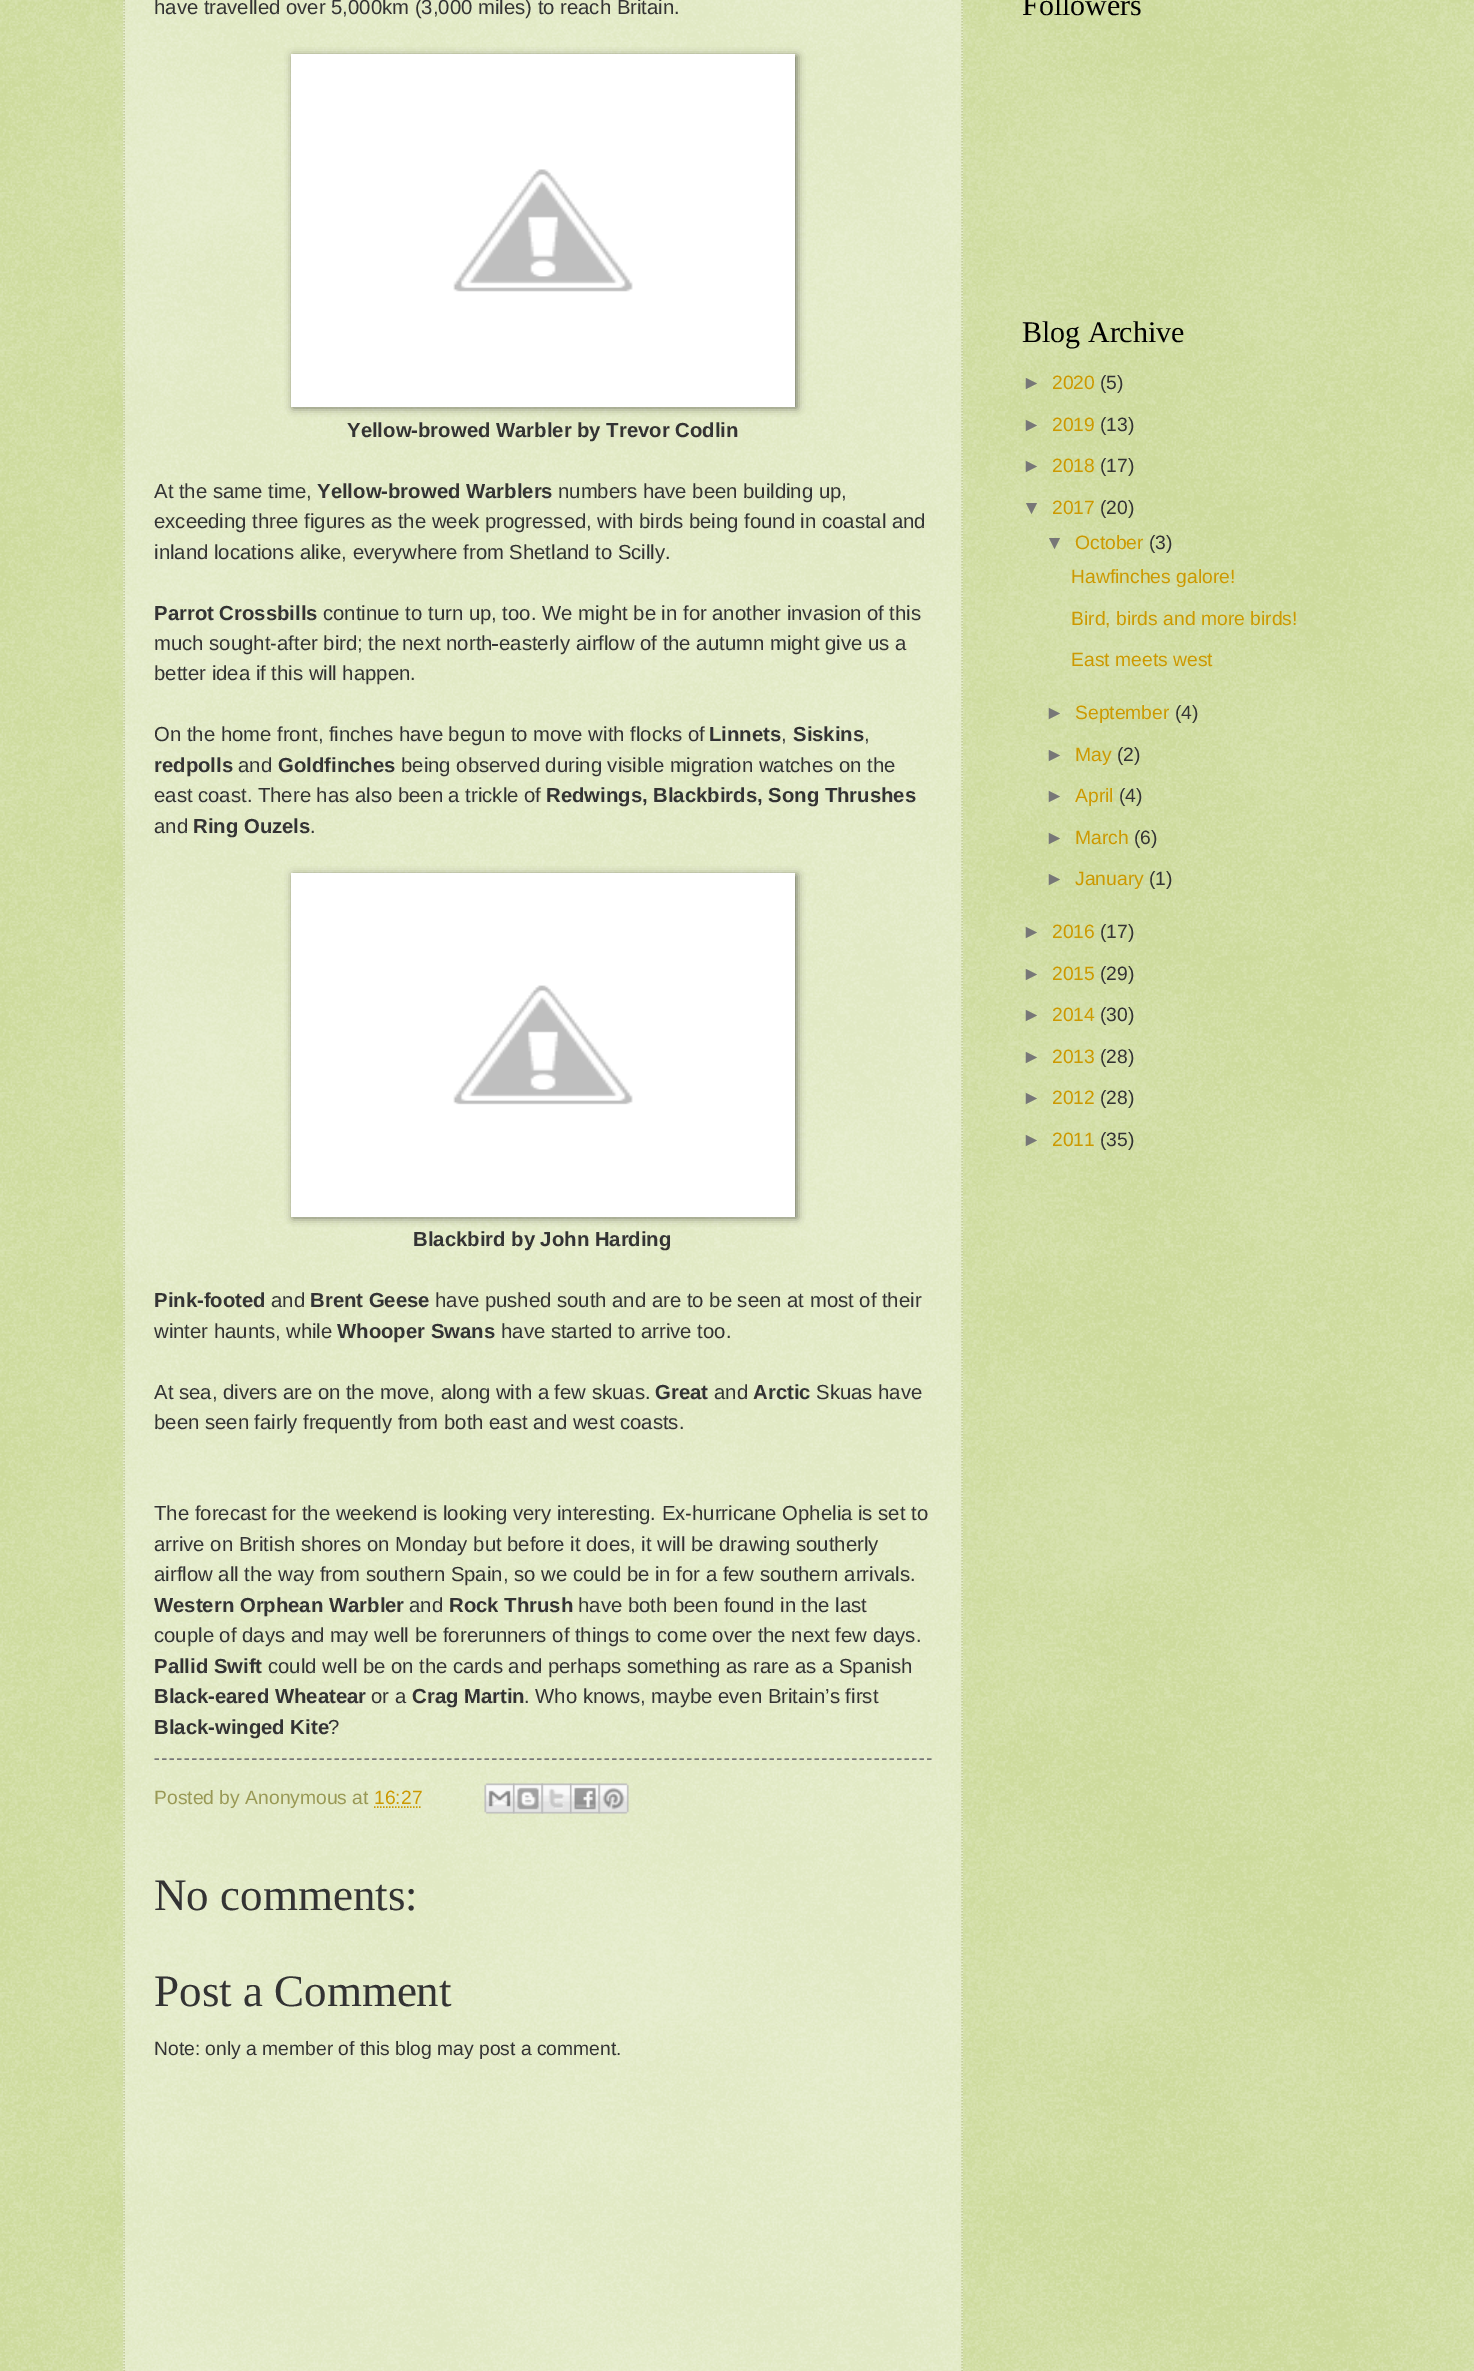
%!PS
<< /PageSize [1474 2371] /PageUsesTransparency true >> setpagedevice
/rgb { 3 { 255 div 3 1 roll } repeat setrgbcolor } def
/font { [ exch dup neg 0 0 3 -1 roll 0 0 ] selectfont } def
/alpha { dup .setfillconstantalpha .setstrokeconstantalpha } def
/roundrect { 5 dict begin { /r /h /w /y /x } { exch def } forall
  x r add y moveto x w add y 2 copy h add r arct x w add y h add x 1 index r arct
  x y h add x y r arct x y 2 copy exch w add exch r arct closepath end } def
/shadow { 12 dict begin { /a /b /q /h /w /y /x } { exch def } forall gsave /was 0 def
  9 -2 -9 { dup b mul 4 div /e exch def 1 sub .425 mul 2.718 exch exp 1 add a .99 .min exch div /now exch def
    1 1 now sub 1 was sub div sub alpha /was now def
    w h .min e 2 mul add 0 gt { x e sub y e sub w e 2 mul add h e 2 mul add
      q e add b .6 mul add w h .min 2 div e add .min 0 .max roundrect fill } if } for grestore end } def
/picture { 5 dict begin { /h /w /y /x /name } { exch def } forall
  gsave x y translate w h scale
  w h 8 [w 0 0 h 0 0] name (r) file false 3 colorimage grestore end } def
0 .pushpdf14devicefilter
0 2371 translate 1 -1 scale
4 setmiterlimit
169 192 84 rgb
0 0 1474 2371 rectfill
(img/1.rgb) 0 0 1474 2371 picture
0.4 alpha
255 255 255 rgb
123 0 840 2371 rectfill
1 alpha
195 204 153 rgb
1.5 setlinewidth
[1.5 1.5] 0 setdash
962 -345 moveto 962 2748 lineto stroke
124 -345 moveto 124 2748 lineto stroke
0 0 0 rgb
293 56 504 352 0 4 0.5 shadow
255 255 255 rgb
291 54 504 353 rectfill
(img/2.rgb) 453 169 180 123 picture
51 51 51 rgb
492 644 6 2 rectfill
0 0 0 rgb
293 875 504 343 0 4 0.5 shadow
255 255 255 rgb
291 873 504 344 rectfill
(img/3.rgb) 453 985 180 120 picture
119 119 119 rgb
[4.5 3] 0 setdash
154.5 1759 moveto 931.5 1759 lineto stroke
204 153 0 rgb
[1.5 1.5] 0 setdash
374 1807 moveto 422 1807 lineto stroke
(img/4.rgb) 484 1783 31 31 picture
(img/5.rgb) 513 1783 30 31 picture
(img/6.rgb) 541 1783 31 31 picture
(img/7.rgb) 570 1783 30 31 picture
(img/8.rgb) 598 1783 31 31 picture
/LiberationSans-Regular 20.3 font
51 51 51 rgb
154 14 moveto (have travelled over 5,000km \(3,000 miles\) to reach Britain.) show
/LiberationSans-Bold 20.3 font
347 437 moveto (Yellow-browed Warbler by Trevor Codlin) show
/LiberationSans-Regular 20.3 font
154 498 moveto (At the same time,) show
/LiberationSans-Bold 20.3 font
317 498 moveto (Yellow-browed Warblers) show
/LiberationSans-Regular 20.3 font
[
  [(numbers have been building up,) 558 498]
  [(exceeding three figures as the week progressed, with birds being found in coastal and) 154 528]
  [(inland locations alike, everywhere from Shetland to Scilly.) 154 559]
] { aload pop moveto show } forall
/LiberationSans-Bold 20.3 font
154 620 moveto (Parrot Crossbills) show
/LiberationSans-Regular 20.3 font
[
  [(continue to turn up, too. We might be in for another invasion of this) 323 620]
  [(much sought-after bird; the next north) 154 650]
  [(easterly airflow of the autumn might give us a) 499 650]
  [(better idea if this will happen.) 154 680]
  [(On the home front, finches have begun to move with flocks of) 154 741]
] { aload pop moveto show } forall
/LiberationSans-Bold 20.3 font
709 741 moveto (Linnets) show
/LiberationSans-Regular 20.3 font
781 741 moveto (,) show
/LiberationSans-Bold 20.3 font
793 741 moveto (Siskins) show
/LiberationSans-Regular 20.3 font
864 741 moveto (,) show
/LiberationSans-Bold 20.3 font
154 772 moveto (redpolls) show
/LiberationSans-Regular 20.3 font
238 772 moveto (and) show
/LiberationSans-Bold 20.3 font
278 772 moveto (Goldfinches) show
/LiberationSans-Regular 20.3 font
401 772 moveto (being observed during visible migration watches on the) show
154 802 moveto (east coast. There has also been a trickle of) show
/LiberationSans-Bold 20.3 font
546 802 moveto (Redwings, Blackbirds, Song Thrushes) show
/LiberationSans-Regular 20.3 font
154 833 moveto (and) show
/LiberationSans-Bold 20.3 font
193 833 moveto (Ring Ouzels) show
/LiberationSans-Regular 20.3 font
310 833 moveto (.) show
/LiberationSans-Bold 20.3 font
413 1246 moveto (Blackbird by John Harding) show
154 1307 moveto (Pink-footed) show
/LiberationSans-Regular 20.3 font
271 1307 moveto (and) show
/LiberationSans-Bold 20.3 font
310 1307 moveto (Brent Geese) show
/LiberationSans-Regular 20.3 font
435 1307 moveto (have pushed south and are to be seen at most of their) show
154 1338 moveto (winter haunts, while) show
/LiberationSans-Bold 20.3 font
337 1338 moveto (Whooper Swans) show
/LiberationSans-Regular 20.3 font
501 1338 moveto (have started to arrive too.) show
154 1399 moveto (At sea, divers are on the move, along with a few skuas.) show
/LiberationSans-Bold 20.3 font
655 1399 moveto (Great) show
/LiberationSans-Regular 20.3 font
714 1399 moveto (and) show
/LiberationSans-Bold 20.3 font
753 1399 moveto (Arctic) show
/LiberationSans-Regular 20.3 font
[
  [(Skuas have) 816 1399]
  [(been seen fairly frequently from both east and west coasts.) 154 1429]
  [(The forecast for the weekend is looking very interesting. Ex-hurricane Ophelia is set to) 154 1520]
  [(arrive on British shores on Monday but before it does, it will be drawing southerly) 154 1551]
  [(airflow all the way from southern Spain, so we could be in for a few southern arrivals.) 154 1581]
] { aload pop moveto show } forall
/LiberationSans-Bold 20.3 font
154 1612 moveto (Western Orphean Warbler) show
/LiberationSans-Regular 20.3 font
409 1612 moveto (and) show
/LiberationSans-Bold 20.3 font
449 1612 moveto (Rock Thrush) show
/LiberationSans-Regular 20.3 font
578 1612 moveto (have both been found in the last) show
154 1642 moveto (couple of days and may well be forerunners of things to come over the next few days.) show
/LiberationSans-Bold 20.3 font
154 1673 moveto (Pallid Swift) show
/LiberationSans-Regular 20.3 font
268 1673 moveto (could well be on the cards and perhaps something as rare as a Spanish) show
/LiberationSans-Bold 20.3 font
154 1703 moveto (Black-eared Wheatear) show
/LiberationSans-Regular 20.3 font
371 1703 moveto (or a) show
/LiberationSans-Bold 20.3 font
412 1703 moveto (Crag Martin) show
/LiberationSans-Regular 20.3 font
524 1703 moveto (. Who knows, maybe even Britain’s first) show
/LiberationSans-Bold 20.3 font
154 1734 moveto (Black-winged Kite) show
/LiberationSans-Regular 20.3 font
328 1734 moveto (?) show
/LiberationSans-Regular 19.3 font
153 153 85 rgb
154 1804 moveto (Posted by Anonymous at) show
204 153 0 rgb
374 1804 moveto (16:27) show
/LiberationSerif-Regular 45 font
51 51 51 rgb
154 1910 moveto (No comments:) show
154 2006 moveto (Post a Comment) show
/LiberationSans-Regular 19.3 font
154 2055 moveto (Note: only a member of this blog may post a comment.) show
/LiberationSerif-Regular 30 font
0 0 0 rgb
1022 15 moveto (Followers) show
1022 342 moveto (Blog Archive) show
/LiberationSans-Regular 19.3 font
119 119 119 rgb
1022 389 moveto (►) show
204 153 0 rgb
1052 389 moveto (2020) show
51 51 51 rgb
1100 389 moveto (\(5\)) show
119 119 119 rgb
1022 431 moveto (►) show
204 153 0 rgb
1052 431 moveto (2019) show
51 51 51 rgb
1100 431 moveto (\(13\)) show
119 119 119 rgb
1022 472 moveto (►) show
204 153 0 rgb
1052 472 moveto (2018) show
51 51 51 rgb
1100 472 moveto (\(17\)) show
119 119 119 rgb
1022 514 moveto (▼) show
204 153 0 rgb
1052 514 moveto (2017) show
51 51 51 rgb
1100 514 moveto (\(20\)) show
119 119 119 rgb
1045 549 moveto (▼) show
204 153 0 rgb
1075 549 moveto (October) show
51 51 51 rgb
1149 549 moveto (\(3\)) show
204 153 0 rgb
[
  [(Hawfinches galore!) 1071 583]
  [(Bird, birds and more birds!) 1071 625]
  [(East meets west) 1071 666]
] { aload pop moveto show } forall
119 119 119 rgb
1045 719 moveto (►) show
204 153 0 rgb
1075 719 moveto (September) show
51 51 51 rgb
1175 719 moveto (\(4\)) show
119 119 119 rgb
1045 761 moveto (►) show
204 153 0 rgb
1075 761 moveto (May) show
51 51 51 rgb
1117 761 moveto (\(2\)) show
119 119 119 rgb
1045 802 moveto (►) show
204 153 0 rgb
1075 802 moveto (April) show
51 51 51 rgb
1119 802 moveto (\(4\)) show
119 119 119 rgb
1045 844 moveto (►) show
204 153 0 rgb
1075 844 moveto (March) show
51 51 51 rgb
1134 844 moveto (\(6\)) show
119 119 119 rgb
1045 885 moveto (►) show
204 153 0 rgb
1075 885 moveto (January) show
51 51 51 rgb
1149 885 moveto (\(1\)) show
119 119 119 rgb
1022 938 moveto (►) show
204 153 0 rgb
1052 938 moveto (2016) show
51 51 51 rgb
1100 938 moveto (\(17\)) show
119 119 119 rgb
1022 980 moveto (►) show
204 153 0 rgb
1052 980 moveto (2015) show
51 51 51 rgb
1100 980 moveto (\(29\)) show
119 119 119 rgb
1022 1021 moveto (►) show
204 153 0 rgb
1052 1021 moveto (2014) show
51 51 51 rgb
1100 1021 moveto (\(30\)) show
119 119 119 rgb
1022 1063 moveto (►) show
204 153 0 rgb
1052 1063 moveto (2013) show
51 51 51 rgb
1100 1063 moveto (\(28\)) show
119 119 119 rgb
1022 1104 moveto (►) show
204 153 0 rgb
1052 1104 moveto (2012) show
51 51 51 rgb
1100 1104 moveto (\(28\)) show
119 119 119 rgb
1022 1146 moveto (►) show
204 153 0 rgb
1052 1146 moveto (2011) show
51 51 51 rgb
1100 1146 moveto (\(35\)) show
.poppdf14devicefilter showpage
